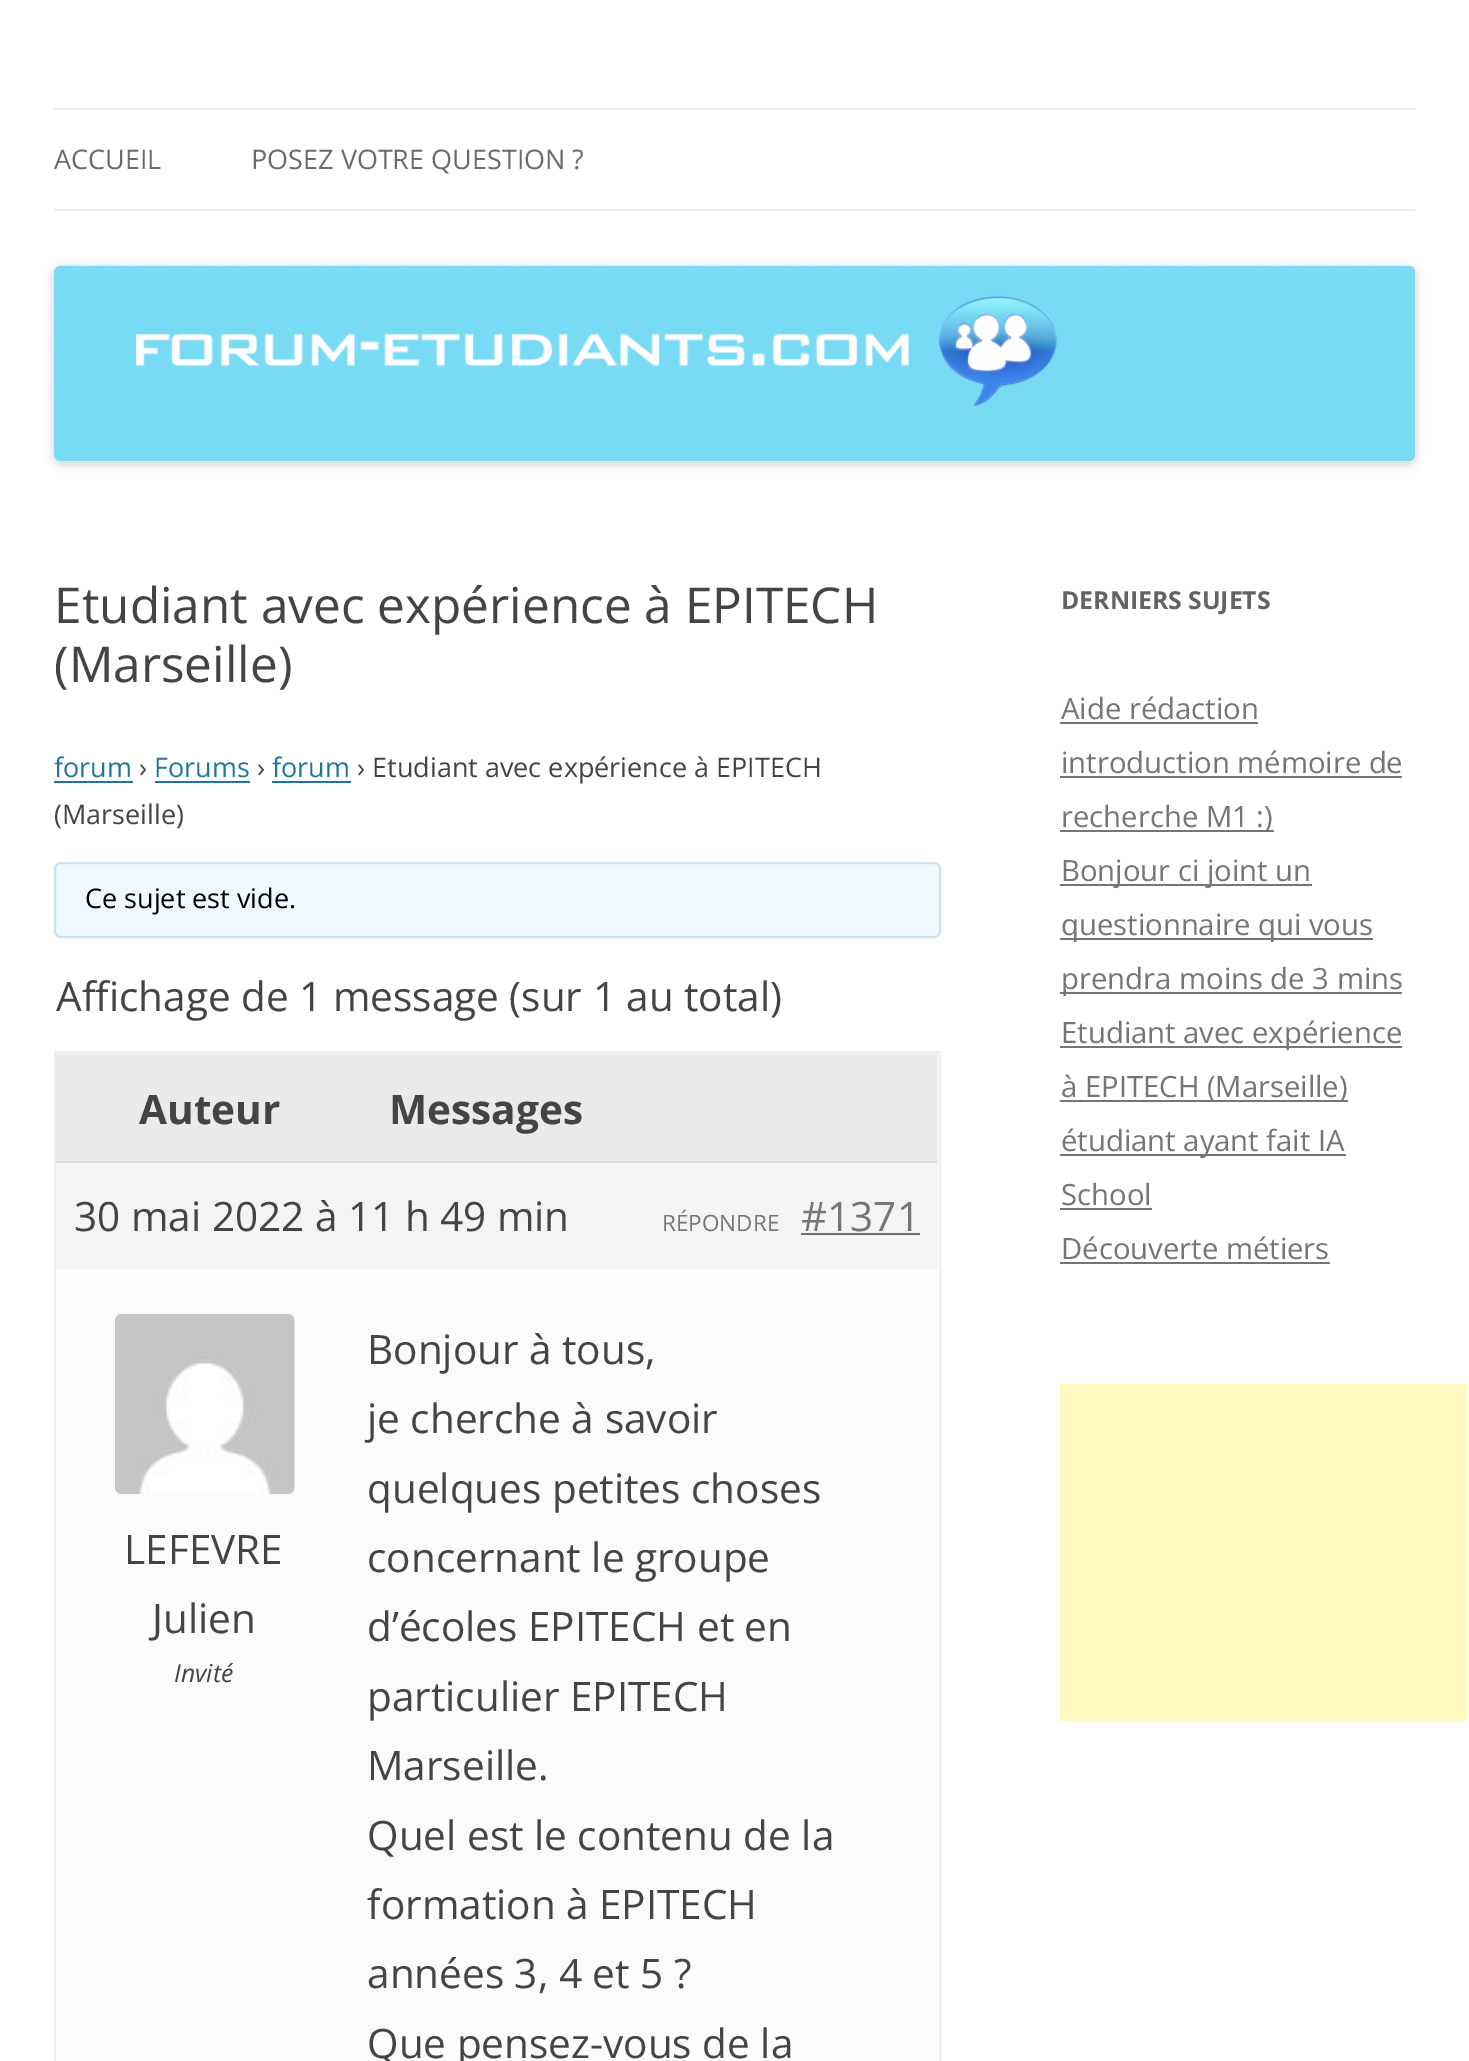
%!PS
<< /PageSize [1469 2061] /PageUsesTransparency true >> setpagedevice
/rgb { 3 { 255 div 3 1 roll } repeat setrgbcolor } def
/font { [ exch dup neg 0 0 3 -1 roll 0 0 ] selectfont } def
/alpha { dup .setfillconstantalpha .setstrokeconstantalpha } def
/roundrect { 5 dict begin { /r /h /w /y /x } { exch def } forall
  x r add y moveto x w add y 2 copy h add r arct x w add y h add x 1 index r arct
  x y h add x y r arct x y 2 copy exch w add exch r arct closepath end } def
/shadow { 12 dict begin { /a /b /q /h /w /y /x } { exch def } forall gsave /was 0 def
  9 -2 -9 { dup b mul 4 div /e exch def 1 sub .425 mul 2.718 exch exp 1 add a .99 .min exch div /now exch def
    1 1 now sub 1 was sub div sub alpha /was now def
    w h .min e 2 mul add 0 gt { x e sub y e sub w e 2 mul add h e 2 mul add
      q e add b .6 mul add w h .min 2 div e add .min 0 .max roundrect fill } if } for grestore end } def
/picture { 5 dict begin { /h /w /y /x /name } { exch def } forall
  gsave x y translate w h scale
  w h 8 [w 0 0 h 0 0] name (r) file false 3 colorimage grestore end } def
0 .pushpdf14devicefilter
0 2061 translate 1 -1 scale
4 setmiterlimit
255 255 255 rgb
0 0 1469 2061 rectfill
237 237 237 rgb
54 108 1361 2 rectfill
54 209 1361 2 rectfill
0 0 0 rgb
54 268 1361 196 7 4.5 0.2 shadow
(img/1.rgb) 54 265 1362 197 picture
[
  [54 781 79 2 33 117 155]
  [155 781 95 2 33 117 155]
  [272 781 79 2 33 117 155]
] { aload pop rgb rectfill } forall
240 248 255 rgb
55 863 885 74 6 roundrect gsave fill grestore
206 225 239 rgb
2 setlinewidth
stroke
238 238 238 rgb
55 1052 885 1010 rectstroke
[
  [56 1055 882 106 234 234 234]
  [56 1053 882 2 238 238 238]
  [56 1163 882 106 244 244 244]
  [56 1161 882 2 221 221 221]
  [801 1233 119 2 112 112 112]
  [56 1269 882 792 251 251 251]
] { aload pop rgb rectfill } forall
(img/2.rgb) 115 1314 180 180 picture
[
  [1060 722 198 2 117 117 117]
  [1060 776 342 2 117 117 117]
  [1060 830 214 2 117 117 117]
  [1060 884 252 2 117 117 117]
  [1060 938 313 2 117 117 117]
  [1060 992 342 2 117 117 117]
  [1060 1046 342 2 117 117 117]
  [1060 1100 288 2 117 117 117]
  [1060 1154 286 2 117 117 117]
  [1060 1208 92 2 117 117 117]
  [1060 1262 270 2 117 117 117]
  [1060 1384 407 337 255 249 192]
] { aload pop rgb rectfill } forall
/OpenSans-Regular 27 font
106 106 106 rgb
54 169 moveto (ACCUEIL) show
251 169 moveto (POSEZ VOTRE QUESTION ?) show
/OpenSans-Regular 49.5 font
68 68 68 rgb
54 623 moveto (Etudiant avec expérience à EPITECH) show
54 682 moveto (\(Marseille\)) show
/OpenSans-Regular 27 font
33 117 155 rgb
54 777 moveto (forum) show
68 68 68 rgb
139 777 moveto (›) show
33 117 155 rgb
154 777 moveto (Forums) show
68 68 68 rgb
257 777 moveto (›) show
33 117 155 rgb
272 777 moveto (forum) show
68 68 68 rgb
357 777 moveto (› Etudiant avec expérience à EPITECH) show
54 824 moveto (\(Marseille\)) show
0 0 0 rgb
85 908 moveto (Ce sujet est vide.) show
/OpenSans-Regular 40.5 font
68 68 68 rgb
56 1011 moveto (Affichage de 1 message \(sur 1 au total\)) show
/OpenSans-Bold 40.5 font
139 1124 moveto (Auteur) show
389 1124 moveto (Messages) show
/OpenSans-Regular 40.5 font
74 1231 moveto (30 mai 2022 à 11 h 49 min) show
/OpenSans-Regular 22.5 font
117 117 117 rgb
662 1231 moveto (RÉPONDRE) show
/OpenSans-Regular 40.5 font
801 1231 moveto (#1371) show
68 68 68 rgb
124 1564 moveto (LEFEVRE) show
152 1633 moveto (Julien) show
/OpenSans-Italic 24.75 font
174 1682 moveto (Invité) show
/OpenSans-Regular 40.5 font
[
  [(Bonjour à tous,) 367 1364]
  [(je cherche à savoir) 367 1433]
  [(quelques petites choses) 367 1503]
  [(concernant le groupe) 367 1572]
  [(d’écoles EPITECH et en) 367 1641]
  [(particulier EPITECH) 367 1711]
  [(Marseille.) 367 1780]
  [(Quel est le contenu de la) 367 1850]
  [(formation à EPITECH) 367 1919]
  [(années 3, 4 et 5 ?) 367 1988]
  [(Que pensez-vous de la) 367 2058]
] { aload pop moveto show } forall
/OpenSans-Bold 24.75 font
99 99 99 rgb
1061 609 moveto (DERNIERS SUJETS) show
/OpenSans-Regular 29.25 font
117 117 117 rgb
[
  [(Aide rédaction) 1061 719]
  [(introduction mémoire de) 1061 773]
  [(recherche M1 :\)) 1061 827]
  [(Bonjour ci joint un) 1061 881]
  [(questionnaire qui vous) 1061 935]
  [(prendra moins de 3 mins) 1061 989]
  [(Etudiant avec expérience) 1061 1043]
  [(à EPITECH \(Marseille\)) 1061 1097]
  [(étudiant ayant fait IA) 1061 1151]
  [(School) 1061 1205]
  [(Découverte métiers) 1061 1259]
] { aload pop moveto show } forall
.poppdf14devicefilter showpage
